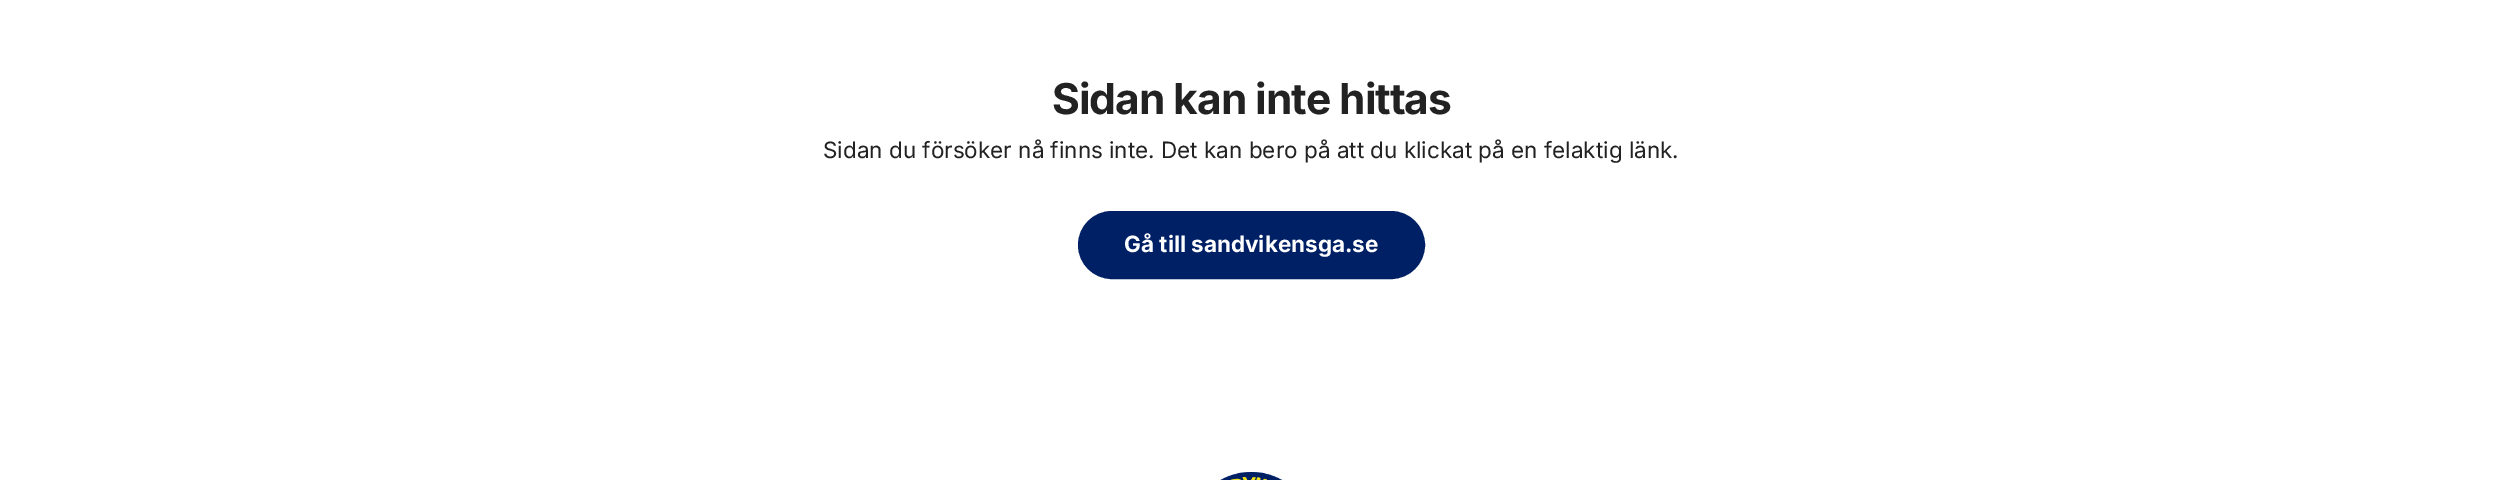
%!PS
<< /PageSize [2502 480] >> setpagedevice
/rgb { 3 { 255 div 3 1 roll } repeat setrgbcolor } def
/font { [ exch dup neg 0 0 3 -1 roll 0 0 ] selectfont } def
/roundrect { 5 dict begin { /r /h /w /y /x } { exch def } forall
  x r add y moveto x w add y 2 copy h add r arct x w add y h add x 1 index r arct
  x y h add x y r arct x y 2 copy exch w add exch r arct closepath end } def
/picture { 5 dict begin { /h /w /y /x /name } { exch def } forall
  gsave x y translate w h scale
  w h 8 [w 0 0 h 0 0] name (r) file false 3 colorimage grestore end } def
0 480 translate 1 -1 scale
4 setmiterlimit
255 255 255 rgb
0 0 2502 480 rectfill
0 32 102 rgb
1079.5 212.5 344 65 32.5 roundrect gsave fill grestore
3 setlinewidth
stroke
(img/1.rgb) 1220 472 63 8 picture
/Inter-Bold 42.5 font
34 34 34 rgb
1052 114 moveto -1 0 (Sidan kan inte hittas) ashow
/Inter-Regular 22.5 font
823 158 moveto (Sidan du försöker nå finns inte. Det kan bero på att du klickat på en felaktig länk.) show
/Inter-Bold 22.5 font
255 255 255 rgb
1124 252 moveto (Gå till sandvikensga.se) show
showpage
